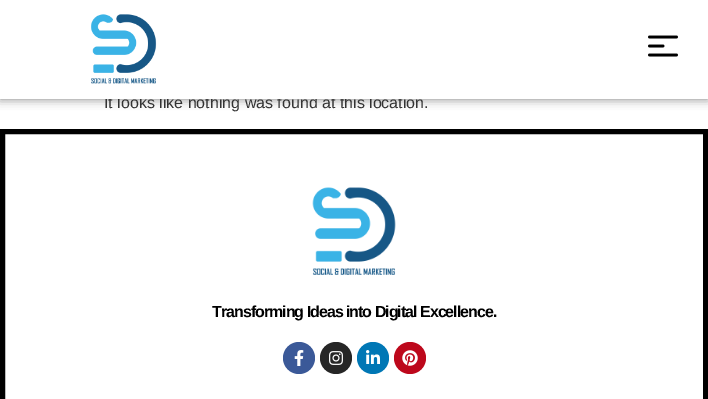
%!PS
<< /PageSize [708 399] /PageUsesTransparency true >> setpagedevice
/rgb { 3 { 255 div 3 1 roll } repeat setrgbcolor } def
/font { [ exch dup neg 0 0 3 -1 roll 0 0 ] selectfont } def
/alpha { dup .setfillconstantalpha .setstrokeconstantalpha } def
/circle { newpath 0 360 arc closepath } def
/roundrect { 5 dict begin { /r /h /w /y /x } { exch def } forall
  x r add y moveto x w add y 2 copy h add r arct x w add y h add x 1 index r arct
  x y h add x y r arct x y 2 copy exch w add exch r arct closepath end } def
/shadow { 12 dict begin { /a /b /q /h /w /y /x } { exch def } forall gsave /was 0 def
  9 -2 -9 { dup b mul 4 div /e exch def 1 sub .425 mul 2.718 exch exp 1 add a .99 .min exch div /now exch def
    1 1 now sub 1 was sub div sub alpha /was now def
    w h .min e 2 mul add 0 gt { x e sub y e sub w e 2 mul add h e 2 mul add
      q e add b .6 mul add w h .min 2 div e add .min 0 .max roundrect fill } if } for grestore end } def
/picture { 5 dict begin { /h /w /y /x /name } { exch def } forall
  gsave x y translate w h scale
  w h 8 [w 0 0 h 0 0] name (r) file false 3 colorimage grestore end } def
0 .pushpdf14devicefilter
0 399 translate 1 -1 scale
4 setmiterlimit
255 255 255 rgb
0 0 708 399 rectfill
0 0 0 rgb
0 0 708 99 0 5 0.5 shadow
5 setlinewidth
2.5 131.5 703 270 rectstroke
(img/3.rgb) 312 187 84 88 picture
59 89 152 rgb
299 358 16 circle fill
(img/4.rgb) 294 350 10 16 picture
38 38 38 rgb
336 358 16 circle fill
(img/5.rgb) 329 351 14 14 picture
0 119 181 rgb
373 358 16 circle fill
(img/6.rgb) 366 350 14 14 picture
189 8 28 rgb
410 358 16 circle fill
(img/7.rgb) 402 350 16 16 picture
/LiberationSans-Regular 16 font
51 51 51 rgb
104 108 moveto (It looks like nothing was found at this location.) show
255 255 255 rgb
0 0 708 99 rectfill
(img/2.rgb) 648 35 30 22 picture
(img/1.rgb) 91 14 66 70 picture
/LiberationSans-Bold 16 font
0 0 0 rgb
212 317 moveto -1 0 (Transforming Ideas into Digital Excellence.) ashow
.poppdf14devicefilter showpage
